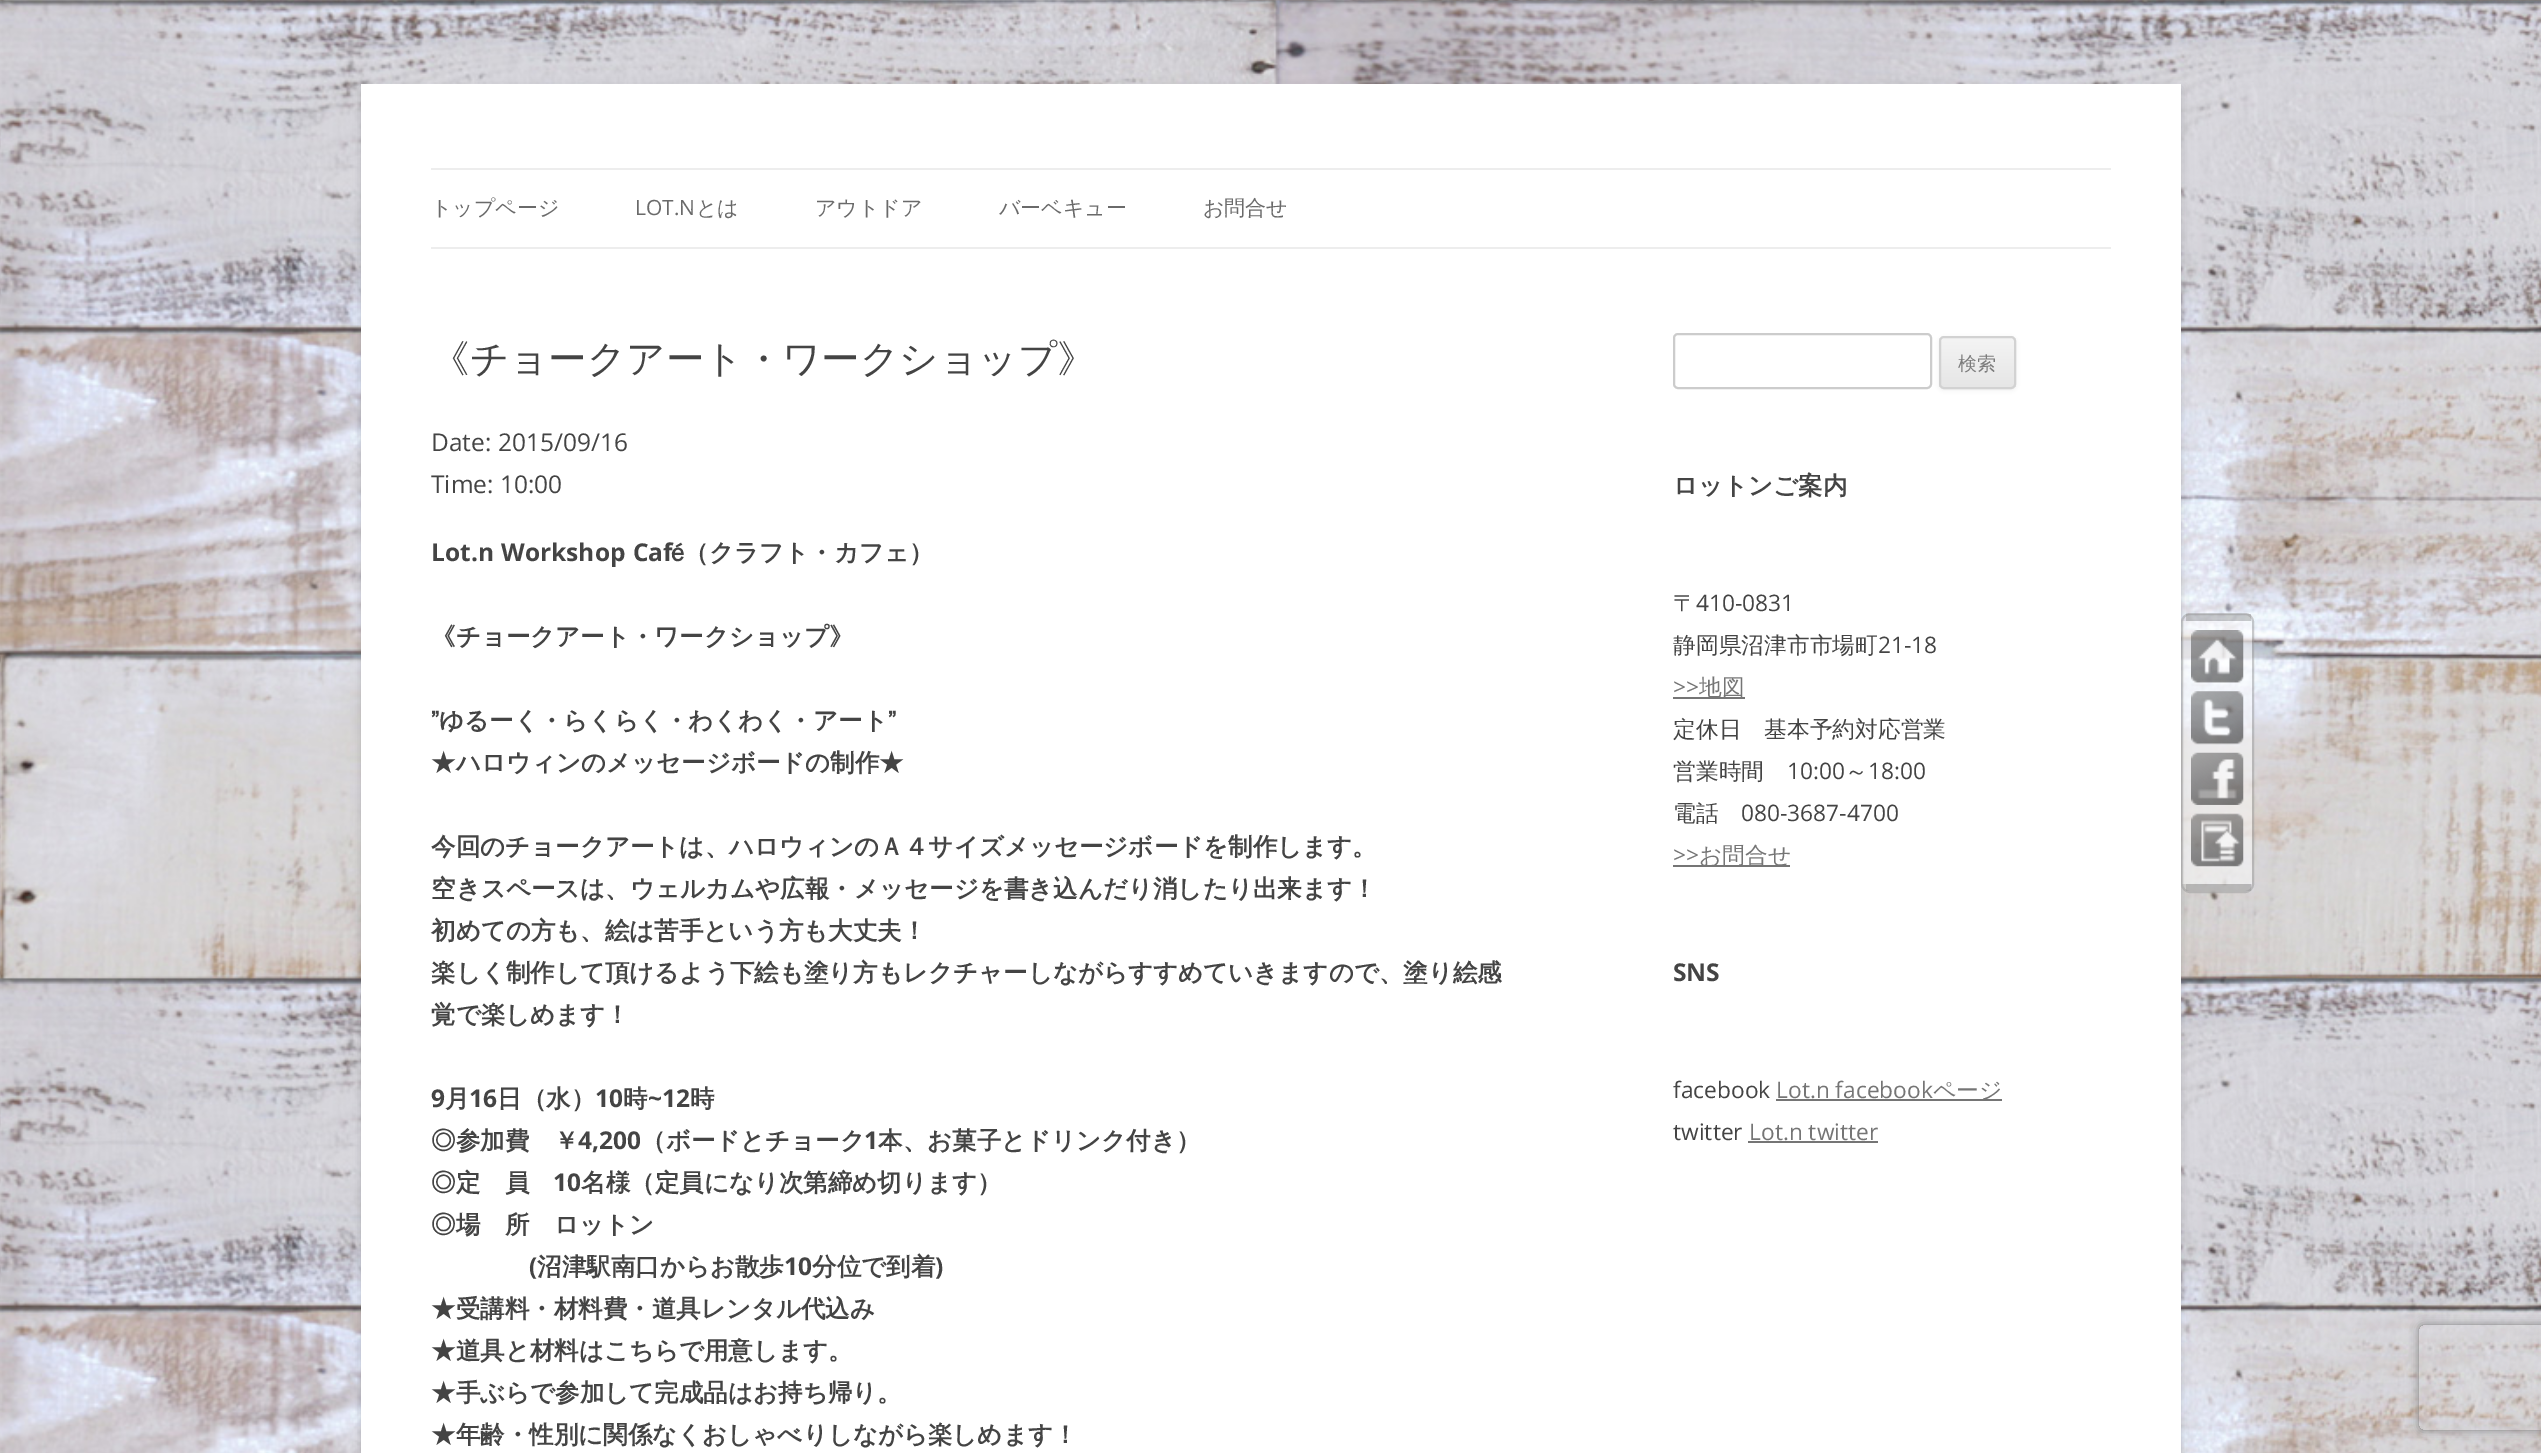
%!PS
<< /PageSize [2541 1453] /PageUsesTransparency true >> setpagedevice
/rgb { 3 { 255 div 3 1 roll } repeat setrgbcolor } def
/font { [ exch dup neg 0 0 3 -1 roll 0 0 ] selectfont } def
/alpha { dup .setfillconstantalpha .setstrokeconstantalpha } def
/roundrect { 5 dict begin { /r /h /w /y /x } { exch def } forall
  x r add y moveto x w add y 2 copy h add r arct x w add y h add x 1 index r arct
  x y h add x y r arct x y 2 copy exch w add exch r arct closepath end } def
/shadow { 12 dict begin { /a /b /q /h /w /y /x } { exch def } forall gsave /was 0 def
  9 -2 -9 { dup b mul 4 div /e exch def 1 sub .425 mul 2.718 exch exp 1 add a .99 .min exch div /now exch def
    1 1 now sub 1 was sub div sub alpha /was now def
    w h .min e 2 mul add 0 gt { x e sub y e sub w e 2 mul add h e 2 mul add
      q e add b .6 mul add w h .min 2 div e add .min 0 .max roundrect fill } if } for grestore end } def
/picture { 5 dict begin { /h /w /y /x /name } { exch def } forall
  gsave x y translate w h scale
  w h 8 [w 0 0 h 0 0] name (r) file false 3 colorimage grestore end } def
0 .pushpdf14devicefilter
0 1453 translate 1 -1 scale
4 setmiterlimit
255 255 255 rgb
0 0 2541 1453 rectfill
(img/1.rgb) 0 0 2541 1453 picture
100 100 100 rgb
361 88 1820 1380 0 5 0.3 shadow
[
  [361 84 1820 1369 255 255 255]
  [431 168 1680 2 237 237 237]
  [431 247 1680 2 237 237 237]
] { aload pop rgb rectfill } forall
204 204 204 rgb
2 setlinewidth
1674 334 257 54 4 roundrect stroke
64 64 64 rgb
1939 338 77 52 5 2 0.1 shadow
gsave
1939 336 77 53 5 roundrect clip newpath
gsave 1939 338 moveto 2016 338 lineto 2016 387 lineto 1939 387 lineto closepath clip newpath
<< /ShadingType 2 /ColorSpace /DeviceRGB /Coords [1978 338 1978 387] /Extend [true true] /Function << /FunctionType 2 /Domain [0 1] /C0 [0.957 0.957 0.957] /C1 [0.902 0.902 0.902] /N 1 >> >> shfill grestore
grestore
210 210 210 rgb
1940 337 75 51 4 roundrect stroke
[
  [1673 697 72 2 117 117 117]
  [1673 865 117 2 117 117 117]
  [1776 1099 226 2 117 117 117]
  [1748 1141 130 2 117 117 117]
] { aload pop rgb rectfill } forall
0.5 alpha
255 255 255 rgb
2189 621 moveto 2252 621 lineto 2252 884 lineto 2182 884 lineto 2182 621 lineto closepath fill
153 153 153 rgb
2182 614 71 278 8 roundrect stroke
2186 614 65 7 rectfill
2186 884 65 7 rectfill
1 alpha
(img/2.rgb) 2191 630 53 53 picture
(img/3.rgb) 2191 691 53 54 picture
(img/4.rgb) 2191 752 53 53 picture
(img/5.rgb) 2191 813 53 54 picture
gsave
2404 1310 moveto 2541 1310 lineto 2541 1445 lineto 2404 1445 lineto closepath 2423 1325 moveto 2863 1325 lineto 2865 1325 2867 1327 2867 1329 curveto 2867 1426 lineto 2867 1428 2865 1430 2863 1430 curveto 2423 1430 lineto 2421 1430 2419 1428 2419 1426 curveto 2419 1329 lineto 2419 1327 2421 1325 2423 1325 curveto closepath eoclip newpath
128 128 128 rgb
2419 1325 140 105 4 4.5 1 shadow
grestore
/WenQuanYiZenHei-Medium 21 font
106 106 106 rgb
431 215 moveto (トップページ) show
/OpenSans-Regular 21 font
635 215 moveto (LOT.N) show
/WenQuanYiZenHei-Medium 21 font
[
  [(とは) 696 215]
  [(アウトドア) 815 215]
  [(バーベキュー) 999 215]
  [(お問合せ) 1203 215]
] { aload pop moveto show } forall
/WenQuanYiZenHei-Medium 38.5 font
68 68 68 rgb
431 372 moveto (《チョークアート・ワークショップ》) show
/OpenSans-Regular 24.5 font
431 451 moveto (Date: 2015/09/16) show
431 493 moveto (Time: 10:00) show
/OpenSans-Bold 24.5 font
431 561 moveto 1 0 32 (Lot.n Workshop Caf) widthshow
/WenQuanYiZenHei-Bold 24.5 font
[
  [(é（クラフト・カフェ）) 671 561]
  [(《チョークアート・ワークショップ》) 431 645]
  [(”ゆるーく・らくらく・わくわく・アート”) 431 729]
  [(★ハロウィンのメッセージボードの制作★) 431 771]
  [(今回のチョークアートは、ハロウィンのＡ４サイズメッセージボードを制作します。) 431 855]
  [(空きスペースは、ウェルカムや広報・メッセージを書き込んだり消したり出来ます！) 431 897]
  [(初めての方も、絵は苦手という方も大丈夫！) 431 939]
  [(楽しく制作して頂けるよう下絵も塗り方もレクチャーしながらすすめていきますので、塗り絵感) 431 981]
  [(覚で楽しめます！) 431 1023]
] { aload pop moveto show } forall
/OpenSans-Bold 24.5 font
431 1107 moveto (9) show
/WenQuanYiZenHei-Bold 24.5 font
445 1107 moveto (月) show
/OpenSans-Bold 24.5 font
469 1107 moveto (16) show
/WenQuanYiZenHei-Bold 24.5 font
497 1107 moveto (日（水）) show
/OpenSans-Bold 24.5 font
595 1107 moveto (10) show
/WenQuanYiZenHei-Bold 24.5 font
623 1107 moveto (時) show
/OpenSans-Bold 24.5 font
648 1107 moveto (~12) show
/WenQuanYiZenHei-Bold 24.5 font
690 1107 moveto (時) show
431 1149 moveto (◎参加費　￥) show
/OpenSans-Bold 24.5 font
578 1149 moveto (4,200) show
/WenQuanYiZenHei-Bold 24.5 font
641 1149 moveto (（ボードとチョーク) show
/OpenSans-Bold 24.5 font
864 1149 moveto (1) show
/WenQuanYiZenHei-Bold 24.5 font
878 1149 moveto (本、お菓子とドリンク付き）) show
431 1191 moveto (◎定　員) show
/OpenSans-Bold 24.5 font
553 1191 moveto (10) show
/WenQuanYiZenHei-Bold 24.5 font
581 1191 moveto (名様（定員になり次第締め切ります）) show
431 1233 moveto (◎場　所　ロットン) show
/OpenSans-Bold 24.5 font
529 1275 moveto (\() show
/WenQuanYiZenHei-Bold 24.5 font
537 1275 moveto (沼津駅南口からお散歩) show
/OpenSans-Bold 24.5 font
784 1275 moveto (10) show
/WenQuanYiZenHei-Bold 24.5 font
812 1275 moveto (分位で到着) show
/OpenSans-Bold 24.5 font
935 1275 moveto (\)) show
/WenQuanYiZenHei-Bold 24.5 font
[
  [(★受講料・材料費・道具レンタル代込み) 431 1317]
  [(★道具と材料はこちらで用意します。) 431 1359]
  [(★手ぶらで参加して完成品はお持ち帰り。) 431 1401]
  [(★年齢・性別に関係なくおしゃべりしながら楽しめます！) 431 1443]
] { aload pop moveto show } forall
/WenQuanYiZenHei-Medium 19 font
124 124 124 rgb
1958 370 moveto (検索) show
/WenQuanYiZenHei-Bold 24.5 font
68 68 68 rgb
1673 494 moveto (ロットンご案内) show
/WenQuanYiZenHei-Medium 22.75 font
1673 611 moveto (〒) show
/OpenSans-Regular 22.75 font
1696 611 moveto (410-0831) show
/WenQuanYiZenHei-Medium 22.75 font
1673 653 moveto (静岡県沼津市市場町) show
/OpenSans-Regular 22.75 font
1878 653 moveto (21-18) show
117 117 117 rgb
1673 695 moveto (>>) show
/WenQuanYiZenHei-Medium 22.75 font
1699 695 moveto (地図) show
68 68 68 rgb
1673 737 moveto (定休日　基本予約対応営業) show
1673 779 moveto (営業時間) show
/OpenSans-Regular 22.75 font
1787 779 moveto (10:00) show
/WenQuanYiZenHei-Medium 22.75 font
1845 779 moveto (～) show
/OpenSans-Regular 22.75 font
1868 779 moveto (18:00) show
/WenQuanYiZenHei-Medium 22.75 font
1673 821 moveto (電話) show
/OpenSans-Regular 22.75 font
1741 821 moveto (080-3687-4700) show
117 117 117 rgb
1673 863 moveto (>>) show
/WenQuanYiZenHei-Medium 22.75 font
1699 863 moveto (お問合せ) show
/OpenSans-Bold 24.5 font
68 68 68 rgb
1673 981 moveto (SNS) show
/OpenSans-Regular 22.75 font
1673 1098 moveto (facebook) show
117 117 117 rgb
1776 1098 moveto (Lot.n facebook) show
/WenQuanYiZenHei-Medium 22.75 font
1933 1098 moveto (ページ) show
/OpenSans-Regular 22.75 font
68 68 68 rgb
1673 1140 moveto (twitter) show
117 117 117 rgb
1749 1140 moveto (Lot.n twitter) show
.poppdf14devicefilter showpage
